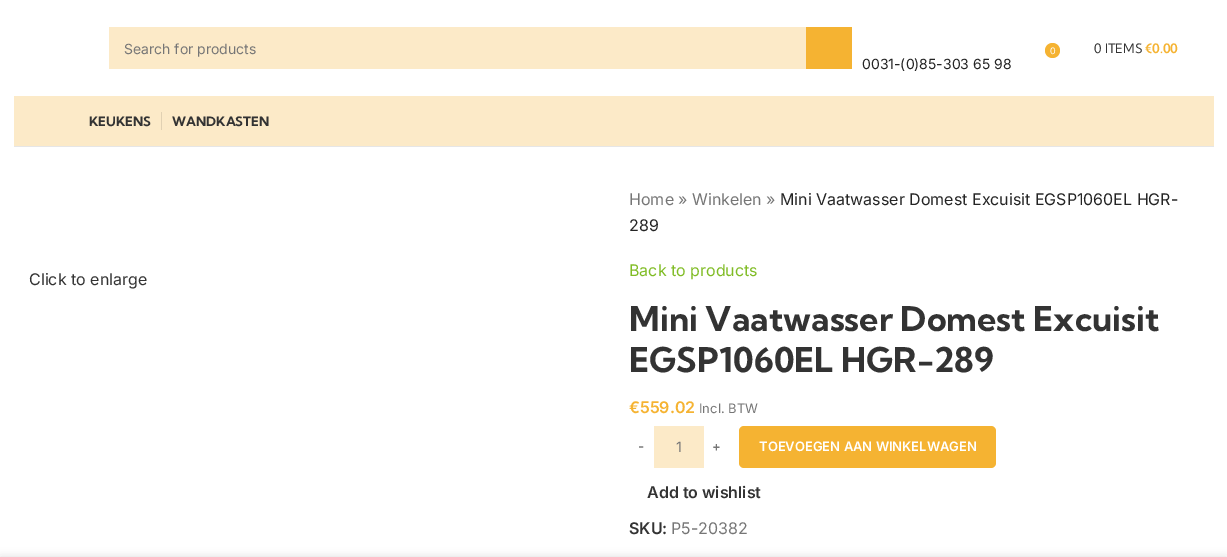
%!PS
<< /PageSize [1227 557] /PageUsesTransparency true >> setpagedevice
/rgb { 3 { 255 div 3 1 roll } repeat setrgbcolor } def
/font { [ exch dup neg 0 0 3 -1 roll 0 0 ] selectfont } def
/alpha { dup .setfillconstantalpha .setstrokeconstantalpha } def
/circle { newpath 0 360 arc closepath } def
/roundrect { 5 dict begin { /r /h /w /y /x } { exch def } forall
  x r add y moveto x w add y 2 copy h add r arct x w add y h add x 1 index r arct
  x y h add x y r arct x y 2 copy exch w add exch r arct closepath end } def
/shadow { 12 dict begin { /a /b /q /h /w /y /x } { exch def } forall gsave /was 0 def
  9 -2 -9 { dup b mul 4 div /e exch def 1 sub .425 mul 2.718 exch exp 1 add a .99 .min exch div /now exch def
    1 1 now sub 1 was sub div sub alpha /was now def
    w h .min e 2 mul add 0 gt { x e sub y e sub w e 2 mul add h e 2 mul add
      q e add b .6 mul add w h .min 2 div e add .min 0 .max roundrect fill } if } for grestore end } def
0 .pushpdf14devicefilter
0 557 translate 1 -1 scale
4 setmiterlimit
255 255 255 rgb
0 0 1227 557 rectfill
252 234 200 rgb
109 27 697 42 rectfill
245 179 50 rgb
806 27 46 42 rectfill
1052.5 50.5 7.5 circle fill
[
  [14 96 1200 50 252 234 200]
  [14 146 1200 1 230 230 230]
  [161 112 1 18 225 209 179]
  [654 426 50 42 252 234 200]
] { aload pop rgb rectfill } forall
245 179 50 rgb
739 426 257 42 5 roundrect fill
0 0 0 rgb
0 557 1227 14 0 4.5 0.14 shadow
/Inter-Regular 14 font
118 118 118 rgb
124 54 moveto (Search for products) show
/Inter-Regular 9 font
255 255 255 rgb
1050 54 moveto (0) show
/KumbhSans-Regular 13 font
51 51 51 rgb
1094 53 moveto (0 ITEMS) show
/KumbhSans-SemiBold 13 font
245 179 50 rgb
1145 53 moveto (€0.00) show
/Inter-Regular 14 font
36 36 36 rgb
862 69 moveto (0031-\(0\)85-303 65 98) show
/KumbhSans-Bold 13 font
51 51 51 rgb
89 126 moveto (KEUKENS) show
172 126 moveto (WANDKASTEN) show
/Inter-Regular 16 font
29 285 moveto (Click to enlarge) show
118 118 118 rgb
[
  [(Home) 629 205]
  [(») 678 205]
  [(Winkelen) 692 205]
  [(») 766 205]
] { aload pop moveto show } forall
36 36 36 rgb
780 205 moveto (Mini Vaatwasser Domest Excuisit EGSP1060EL HGR-) show
629 231 moveto (289) show
128 188 37 rgb
629 276 moveto (Back to products) show
/KumbhSans-Bold 34 font
51 51 51 rgb
629 331 moveto (Mini Vaatwasser Domest Excuisit) show
629 372 moveto (EGSP1060EL HGR-289) show
/Inter-SemiBold 16 font
245 179 50 rgb
629 413 moveto (€559.02) show
/Inter-Regular 13 font
118 118 118 rgb
699 413 moveto (Incl. BTW) show
/Inter-SemiBold 13 font
638 451 moveto (-) show
/Inter-Regular 14 font
676 452 moveto (1) show
/Inter-SemiBold 13 font
712 451 moveto (+) show
255 255 255 rgb
759 451 moveto (TOEVOEGEN AAN WINKELWAGEN) show
/Inter-SemiBold 16 font
51 51 51 rgb
647 498 moveto (Add to wishlist) show
629 534 moveto (SKU:) show
/Inter-Regular 16 font
118 118 118 rgb
671 534 moveto (P5-20382) show
.poppdf14devicefilter showpage
